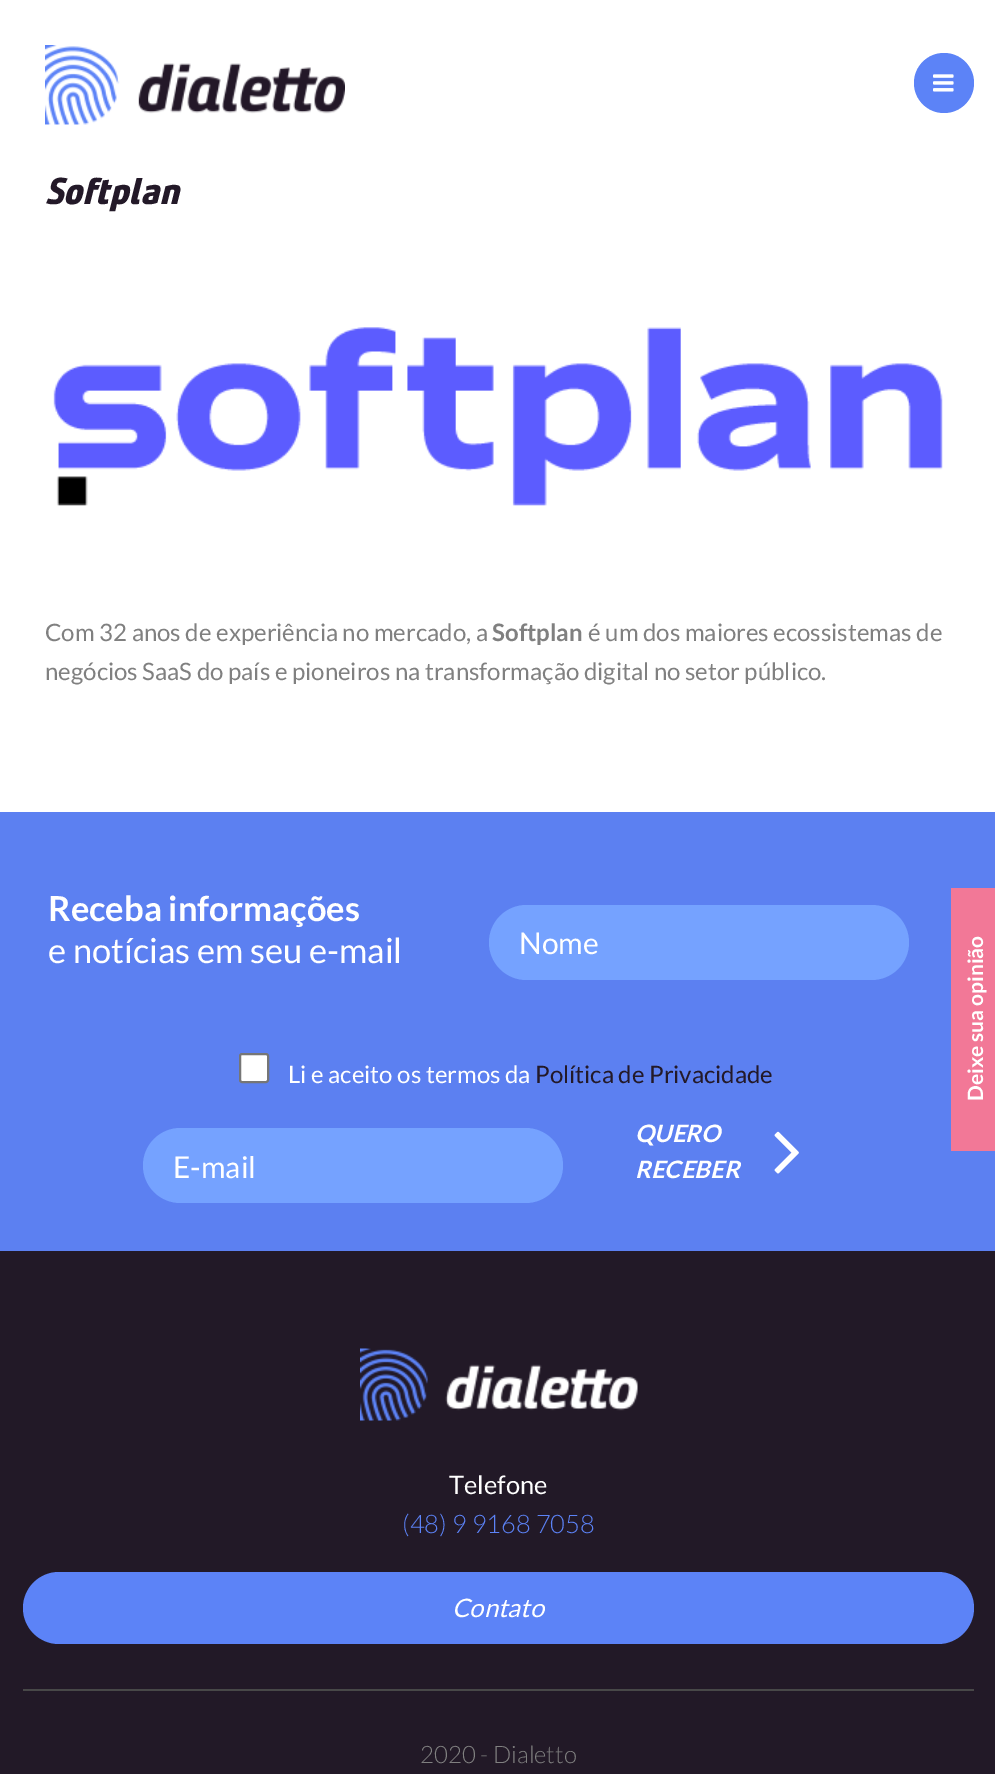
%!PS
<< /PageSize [995 1774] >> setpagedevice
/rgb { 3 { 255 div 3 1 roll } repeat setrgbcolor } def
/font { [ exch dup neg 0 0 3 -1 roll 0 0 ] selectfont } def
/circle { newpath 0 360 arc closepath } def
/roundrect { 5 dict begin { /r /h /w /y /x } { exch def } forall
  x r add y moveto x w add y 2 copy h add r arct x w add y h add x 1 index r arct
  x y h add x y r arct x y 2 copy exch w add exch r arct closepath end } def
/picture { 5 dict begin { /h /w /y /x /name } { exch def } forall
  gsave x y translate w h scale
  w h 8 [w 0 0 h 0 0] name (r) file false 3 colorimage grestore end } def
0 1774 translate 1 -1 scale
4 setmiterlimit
255 255 255 rgb
0 0 995 1774 rectfill
(img/1.rgb) 45 45 300 80 picture
92 131 247 rgb
944 83 30 circle fill
(img/2.rgb) 933 74 21 18 picture
(img/3.rgb) 53 327 890 179 picture
92 128 241 rgb
0 812 995 439 rectfill
117 162 255 rgb
489 905 420 75 37.5 roundrect fill
255 255 255 rgb
240 1054 28 28 2 roundrect gsave fill grestore
118 118 118 rgb
2 setlinewidth
stroke
117 162 255 rgb
143 1128 420 75 37.5 roundrect fill
(img/4.rgb) 774 1131 25 43 picture
34 25 39 rgb
0 1251 995 523 rectfill
72 72 72 rgb
23 1689 951 2 rectfill
(img/5.rgb) 360 1348 278 73 picture
92 131 247 rgb
23 1572 951 72 36 roundrect fill
242 120 151 rgb
951 888 44 263 rectfill
/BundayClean-ExtraBoldItalic 37.5 font
35 25 40 rgb
45 204 moveto (Softplan) show
/Lato-Regular 24 font
128 128 128 rgb
45 641 moveto (Com 32 anos de experiência no mercado, a) show
/Lato-Bold 24 font
492 641 moveto (Softplan) show
/Lato-Regular 24 font
588 641 moveto (é um dos maiores ecossistemas de) show
45 680 moveto (negócios SaaS do país e pioneiros na transformação digital no setor público.) show
/Lato-Bold 34.5 font
255 255 255 rgb
48 921 moveto (Receba informações) show
/Lato-Regular 34.5 font
48 963 moveto (e notícias em seu e-mail) show
/Lato-Regular 30 font
519 954 moveto (Nome) show
/Lato-Regular 24 font
288 1083 moveto (Li e aceito os termos da) show
35 25 40 rgb
535 1083 moveto (Política de Privacidade) show
/Lato-Regular 30 font
255 255 255 rgb
173 1178 moveto (E-mail) show
/Lato-BoldItalic 24 font
635 1142 moveto (QUERO) show
635 1178 moveto (RECEBER) show
/Lato-Regular 25.5 font
449 1494 moveto (Telefone) show
/Lato-Light 25.5 font
92 131 247 rgb
402 1533 moveto (\(48\) 9 9168 7058) show
/Lato-Italic 25.5 font
255 255 255 rgb
452 1617 moveto (Contato) show
/Lato-Light 24 font
128 128 128 rgb
420 1763 moveto (2020 - Dialetto) show
/Lato-Bold 21 font
255 255 255 rgb
gsave 983 1101 translate -90 rotate 0 0 moveto (Deixe sua opinião) show grestore
showpage
